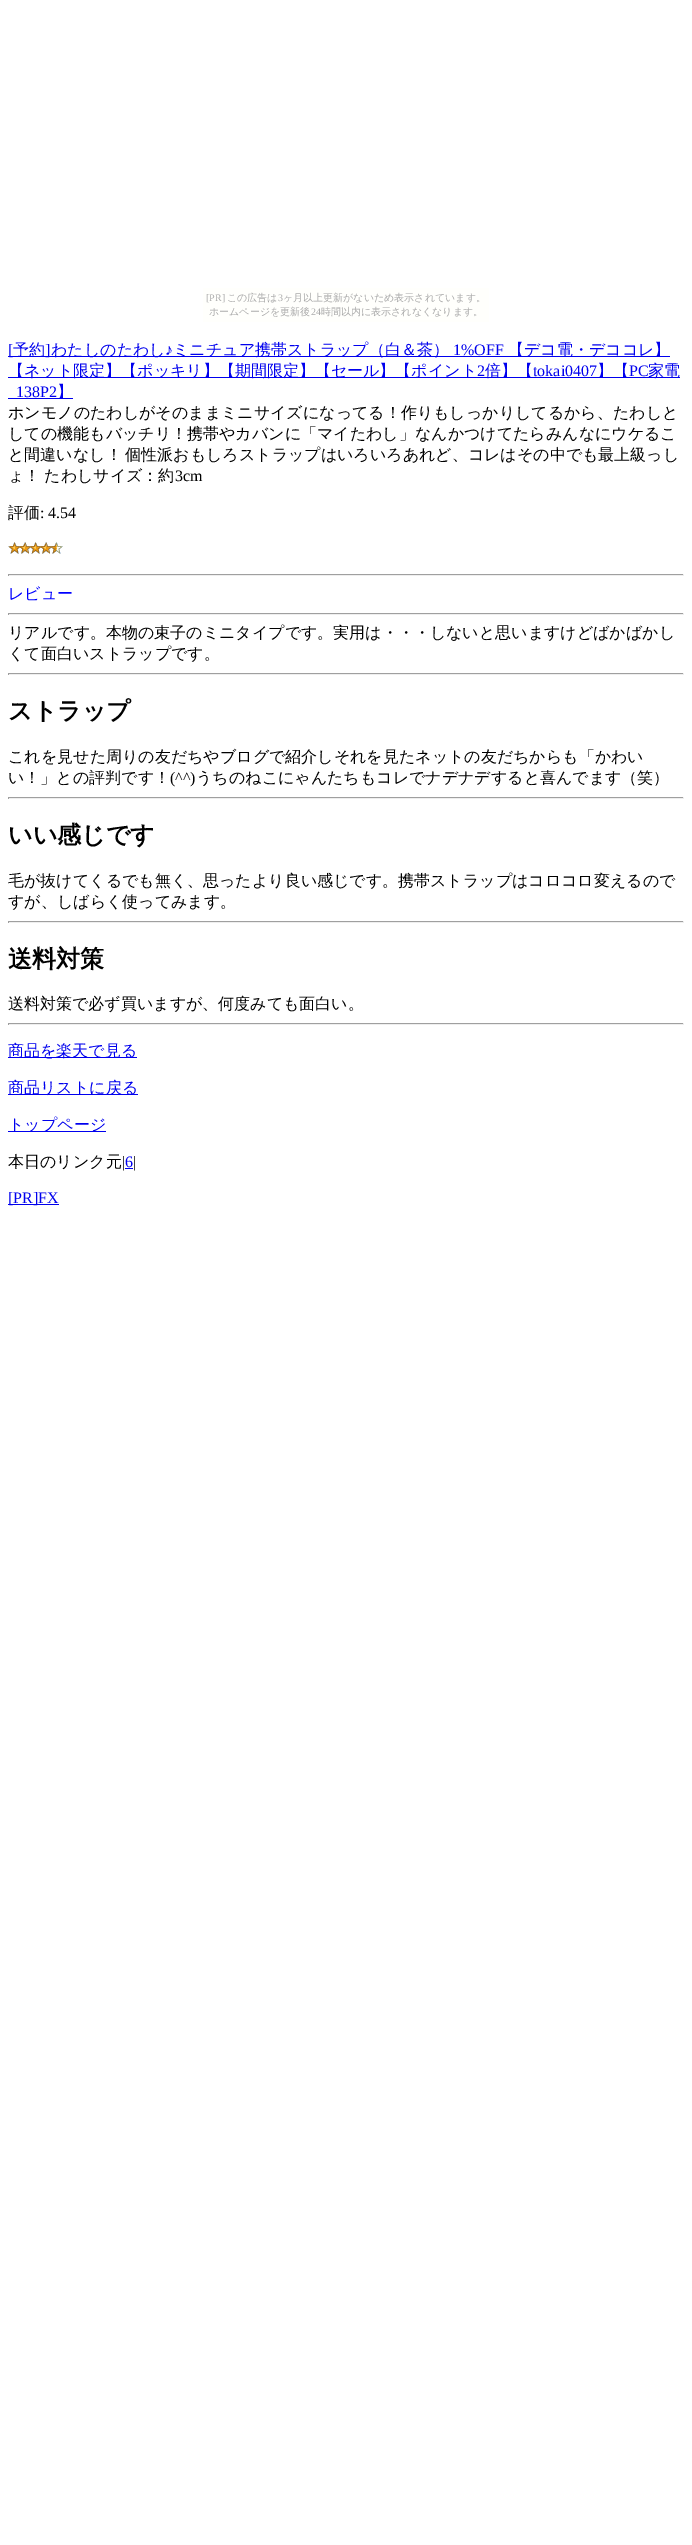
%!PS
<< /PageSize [692 2545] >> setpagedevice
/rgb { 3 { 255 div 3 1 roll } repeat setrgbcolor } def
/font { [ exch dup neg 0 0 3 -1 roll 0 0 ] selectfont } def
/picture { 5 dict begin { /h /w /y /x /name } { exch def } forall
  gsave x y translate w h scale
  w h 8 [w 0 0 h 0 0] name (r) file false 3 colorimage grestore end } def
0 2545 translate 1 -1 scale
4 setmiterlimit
255 255 255 rgb
0 0 692 2545 rectfill
[
  [203 288 286 34 255 255 252]
  [8 356 662 1 0 0 238]
  [8 377 672 1 0 0 238]
  [8 398 65 1 0 0 238]
] { aload pop rgb rectfill } forall
(img/1.rgb) 8 542 55 12 picture
[
  [8 574 676 1 159 159 159]
  [683 574 1 2 238 238 238]
  [8 575 676 1 238 238 238]
  [8 574 1 2 159 159 159]
  [8 613 676 1 159 159 159]
  [683 613 1 2 238 238 238]
  [8 614 676 1 238 238 238]
  [8 613 1 2 159 159 159]
  [8 673 676 1 159 159 159]
  [683 673 1 2 238 238 238]
  [8 674 676 1 238 238 238]
  [8 673 1 2 159 159 159]
  [8 797 676 1 159 159 159]
  [683 797 1 2 238 238 238]
  [8 798 676 1 238 238 238]
  [8 797 1 2 159 159 159]
  [8 921 676 1 159 159 159]
  [683 921 1 2 238 238 238]
  [8 922 676 1 238 238 238]
  [8 921 1 2 159 159 159]
  [8 1023 676 1 159 159 159]
  [683 1023 1 2 238 238 238]
  [8 1024 676 1 238 238 238]
  [8 1023 1 2 159 159 159]
  [8 1057 129 1 0 0 238]
  [8 1094 130 1 0 0 238]
  [8 1131 98 1 0 0 238]
  [125 1168 8 1 0 0 238]
  [8 1204 51 1 0 0 238]
] { aload pop rgb rectfill } forall
/LiberationSerif-Regular 10 font
170 170 170 rgb
206 301 moveto ([PR]) show
/WenQuanYiZenHei-Medium 10 font
227 301 moveto (この広告は) show
/LiberationSerif-Regular 10 font
278 301 moveto (3) show
/WenQuanYiZenHei-Medium 10 font
283 301 moveto (ヶ月以上更新がないため表示されています。) show
209 315 moveto (ホームページを更新後) show
/LiberationSerif-Regular 10 font
311 315 moveto (24) show
/WenQuanYiZenHei-Medium 10 font
321 315 moveto (時間以内に表示されなくなります。) show
/LiberationSerif-Regular 16 font
0 0 238 rgb
8 355 moveto ([) show
/WenQuanYiZenHei-Medium 16 font
13 355 moveto (予約) show
/LiberationSerif-Regular 16 font
45 355 moveto (]) show
/WenQuanYiZenHei-Medium 16 font
51 355 moveto (わたしのたわし) show
/LiberationSerif-Regular 16 font
165 355 moveto (♪) show
/WenQuanYiZenHei-Medium 16 font
173 355 moveto (ミニチュア携帯ストラップ（白＆茶）) show
/LiberationSerif-Regular 16 font
453 355 moveto (1%OFF) show
/WenQuanYiZenHei-Medium 16 font
508 355 moveto (【デコ電・デココレ】) show
8 376 moveto (【ネット限定】【ポッキリ】【期間限定】【セール】【ポイント) show
/LiberationSerif-Regular 16 font
477 376 moveto (2) show
/WenQuanYiZenHei-Medium 16 font
485 376 moveto (倍】【) show
/LiberationSerif-Regular 16 font
533 376 moveto (tokai0407) show
/WenQuanYiZenHei-Medium 16 font
597 376 moveto (】【) show
/LiberationSerif-Regular 16 font
629 376 moveto (PC) show
/WenQuanYiZenHei-Medium 16 font
648 376 moveto (家電) show
/LiberationSerif-Regular 16 font
16 397 moveto (138P2) show
/WenQuanYiZenHei-Medium 16 font
57 397 moveto (】) show
0 0 0 rgb
8 418 moveto (ホンモノのたわしがそのままミニサイズになってる！作りもしっかりしてるから、たわしと) show
8 439 moveto (しての機能もバッチリ！携帯やカバンに「マイたわし」なんかつけてたらみんなにウケるこ) show
8 460 moveto -1 0 32 (と間違いなし！ 個性派おもしろストラップはいろいろあれど、コレはその中でも最上級っし) widthshow
8 481 moveto -1 0 32 (ょ！ たわしサイズ：約) widthshow
/LiberationSerif-Regular 16 font
175 481 moveto (3cm) show
/WenQuanYiZenHei-Medium 16 font
8 518 moveto (評価) show
/LiberationSerif-Regular 16 font
40 518 moveto (: 4.54) show
/WenQuanYiZenHei-Medium 16 font
0 0 255 rgb
8 599 moveto (レビュー) show
0 0 0 rgb
8 638 moveto (リアルです。本物の束子のミニタイプです。実用は・・・しないと思いますけどばかばかし) show
8 659 moveto (くて面白いストラップです。) show
/WenQuanYiZenHei-Bold 24 font
8 719 moveto (ストラップ) show
/WenQuanYiZenHei-Medium 16 font
8 762 moveto (これを見せた周りの友だちやブログで紹介しそれを見たネットの友だちからも「かわい) show
8 783 moveto (い！」との評判です！) show
/LiberationSerif-Regular 16 font
170 783 moveto (\(^^\)) show
/WenQuanYiZenHei-Medium 16 font
196 783 moveto (うちのねこにゃんたちもコレでナデナデすると喜んでます（笑）) show
/WenQuanYiZenHei-Bold 24 font
8 843 moveto (いい感じです) show
/WenQuanYiZenHei-Medium 16 font
8 886 moveto (毛が抜けてくるでも無く、思ったより良い感じです。携帯ストラップはコロコロ変えるので) show
8 907 moveto (すが、しばらく使ってみます。) show
/WenQuanYiZenHei-Bold 24 font
8 967 moveto (送料対策) show
/WenQuanYiZenHei-Medium 16 font
8 1009 moveto (送料対策で必ず買いますが、何度みても面白い。) show
0 0 238 rgb
[
  [(商品を楽天で見る) 8 1056]
  [(商品リストに戻る) 8 1093]
  [(トップページ) 8 1130]
] { aload pop moveto show } forall
0 0 0 rgb
8 1167 moveto (本日のリンク元) show
/LiberationSerif-Regular 16 font
122 1167 moveto (|) show
0 0 238 rgb
125 1167 moveto (6) show
0 0 0 rgb
133 1167 moveto (|) show
0 0 238 rgb
8 1203 moveto ([PR]FX) show
showpage
